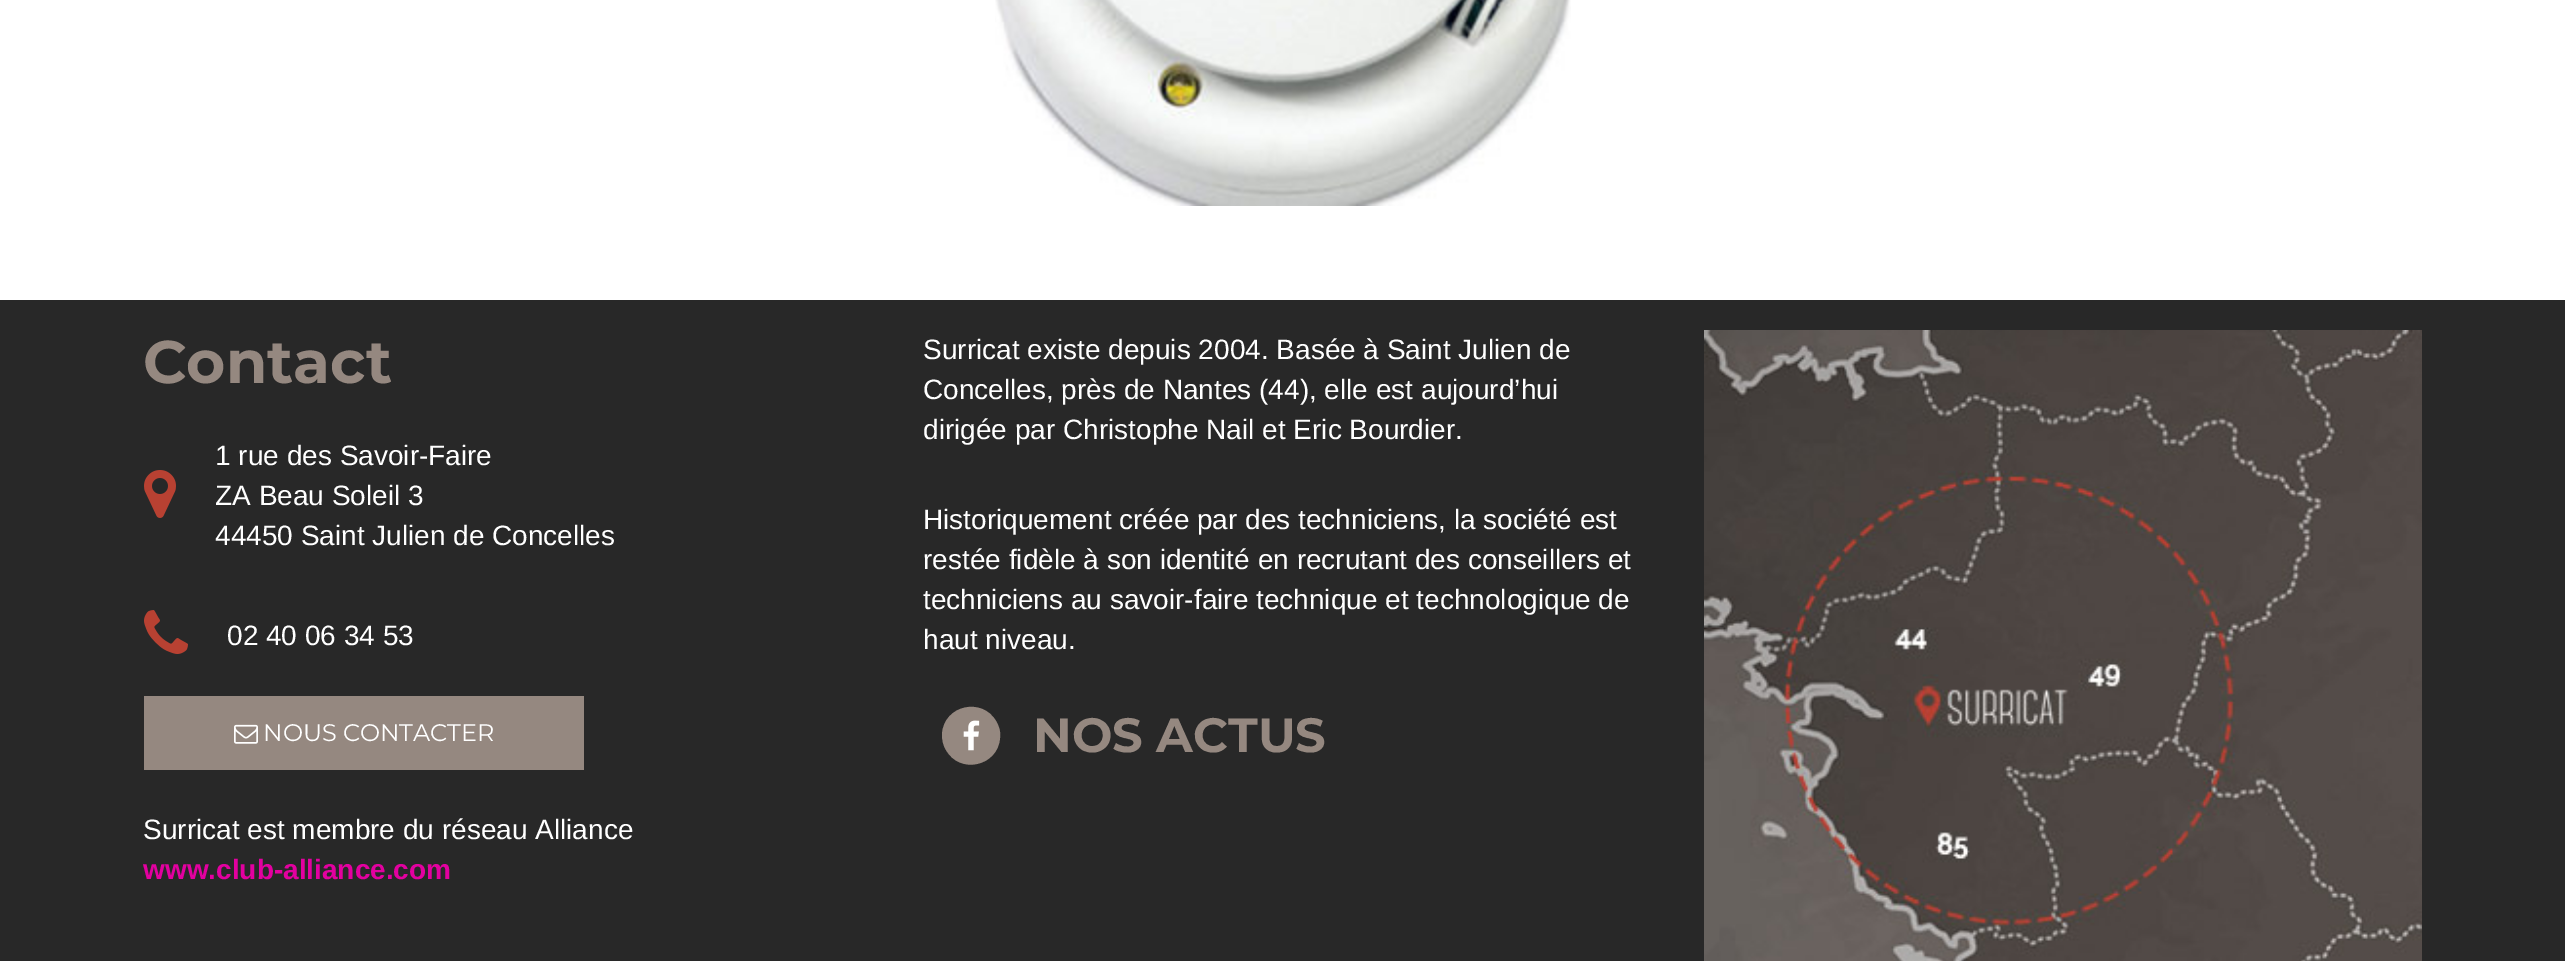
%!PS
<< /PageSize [2565 961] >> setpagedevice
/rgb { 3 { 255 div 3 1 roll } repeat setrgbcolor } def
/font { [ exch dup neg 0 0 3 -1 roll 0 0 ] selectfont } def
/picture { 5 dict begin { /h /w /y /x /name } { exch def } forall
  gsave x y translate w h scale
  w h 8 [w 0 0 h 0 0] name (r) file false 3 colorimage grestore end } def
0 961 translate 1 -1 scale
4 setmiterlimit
255 255 255 rgb
0 0 2565 961 rectfill
(img/1.rgb) 995 0 576 206 picture
40 40 40 rgb
0 300 2565 661 rectfill
(img/2.rgb) 144 470 32 48 picture
(img/3.rgb) 144 610 44 44 picture
149 136 128 rgb
144 696 440 74 rectfill
(img/4.rgb) 234 724 24 20 picture
996 721 moveto 999 726 1001 732 1000 738 curveto 998 766 960 775 946 750 curveto 943 745 942 740 942 734 curveto 944 705 982 697 996 721 curveto closepath fill
(img/5.rgb) 963 720 17 31 picture
(img/6.rgb) 1704 330 718 631 picture
/Montserrat-Bold 60 font
143 383 moveto (Contact) show
/LiberationSans-Regular 28 font
255 255 255 rgb
[
  [(1 rue des Savoir-Faire) 215 465]
  [(ZA Beau Soleil 3) 215 505]
  [(44450 Saint Julien de Concelles) 215 545]
  [(02 40 06 34 53) 227 645]
] { aload pop moveto show } forall
/Montserrat-Regular 24 font
263 741 moveto (NOUS CONTACTER) show
/LiberationSans-Regular 28 font
143 839 moveto (Surricat est membre du réseau Alliance) show
/LiberationSans-Bold 28 font
227 0 160 rgb
143 879 moveto (www.club-alliance.com) show
/LiberationSans-Regular 28 font
255 255 255 rgb
[
  [(Surricat existe depuis 2004. Basée à Saint Julien de) 923 359]
  [(Concelles, près de Nantes \(44\), elle est aujourd’hui) 923 399]
  [(dirigée par Christophe Nail et Eric Bourdier.) 923 439]
  [(Historiquement créée par des techniciens, la société est) 923 529]
  [(restée fidèle à son identité en recrutant des conseillers et) 923 569]
  [(techniciens au savoir-faire technique et technologique de) 923 609]
  [(haut niveau.) 923 649]
] { aload pop moveto show } forall
/Montserrat-Bold 48 font
149 136 128 rgb
1033 752 moveto (NOS ACTUS) show
showpage
